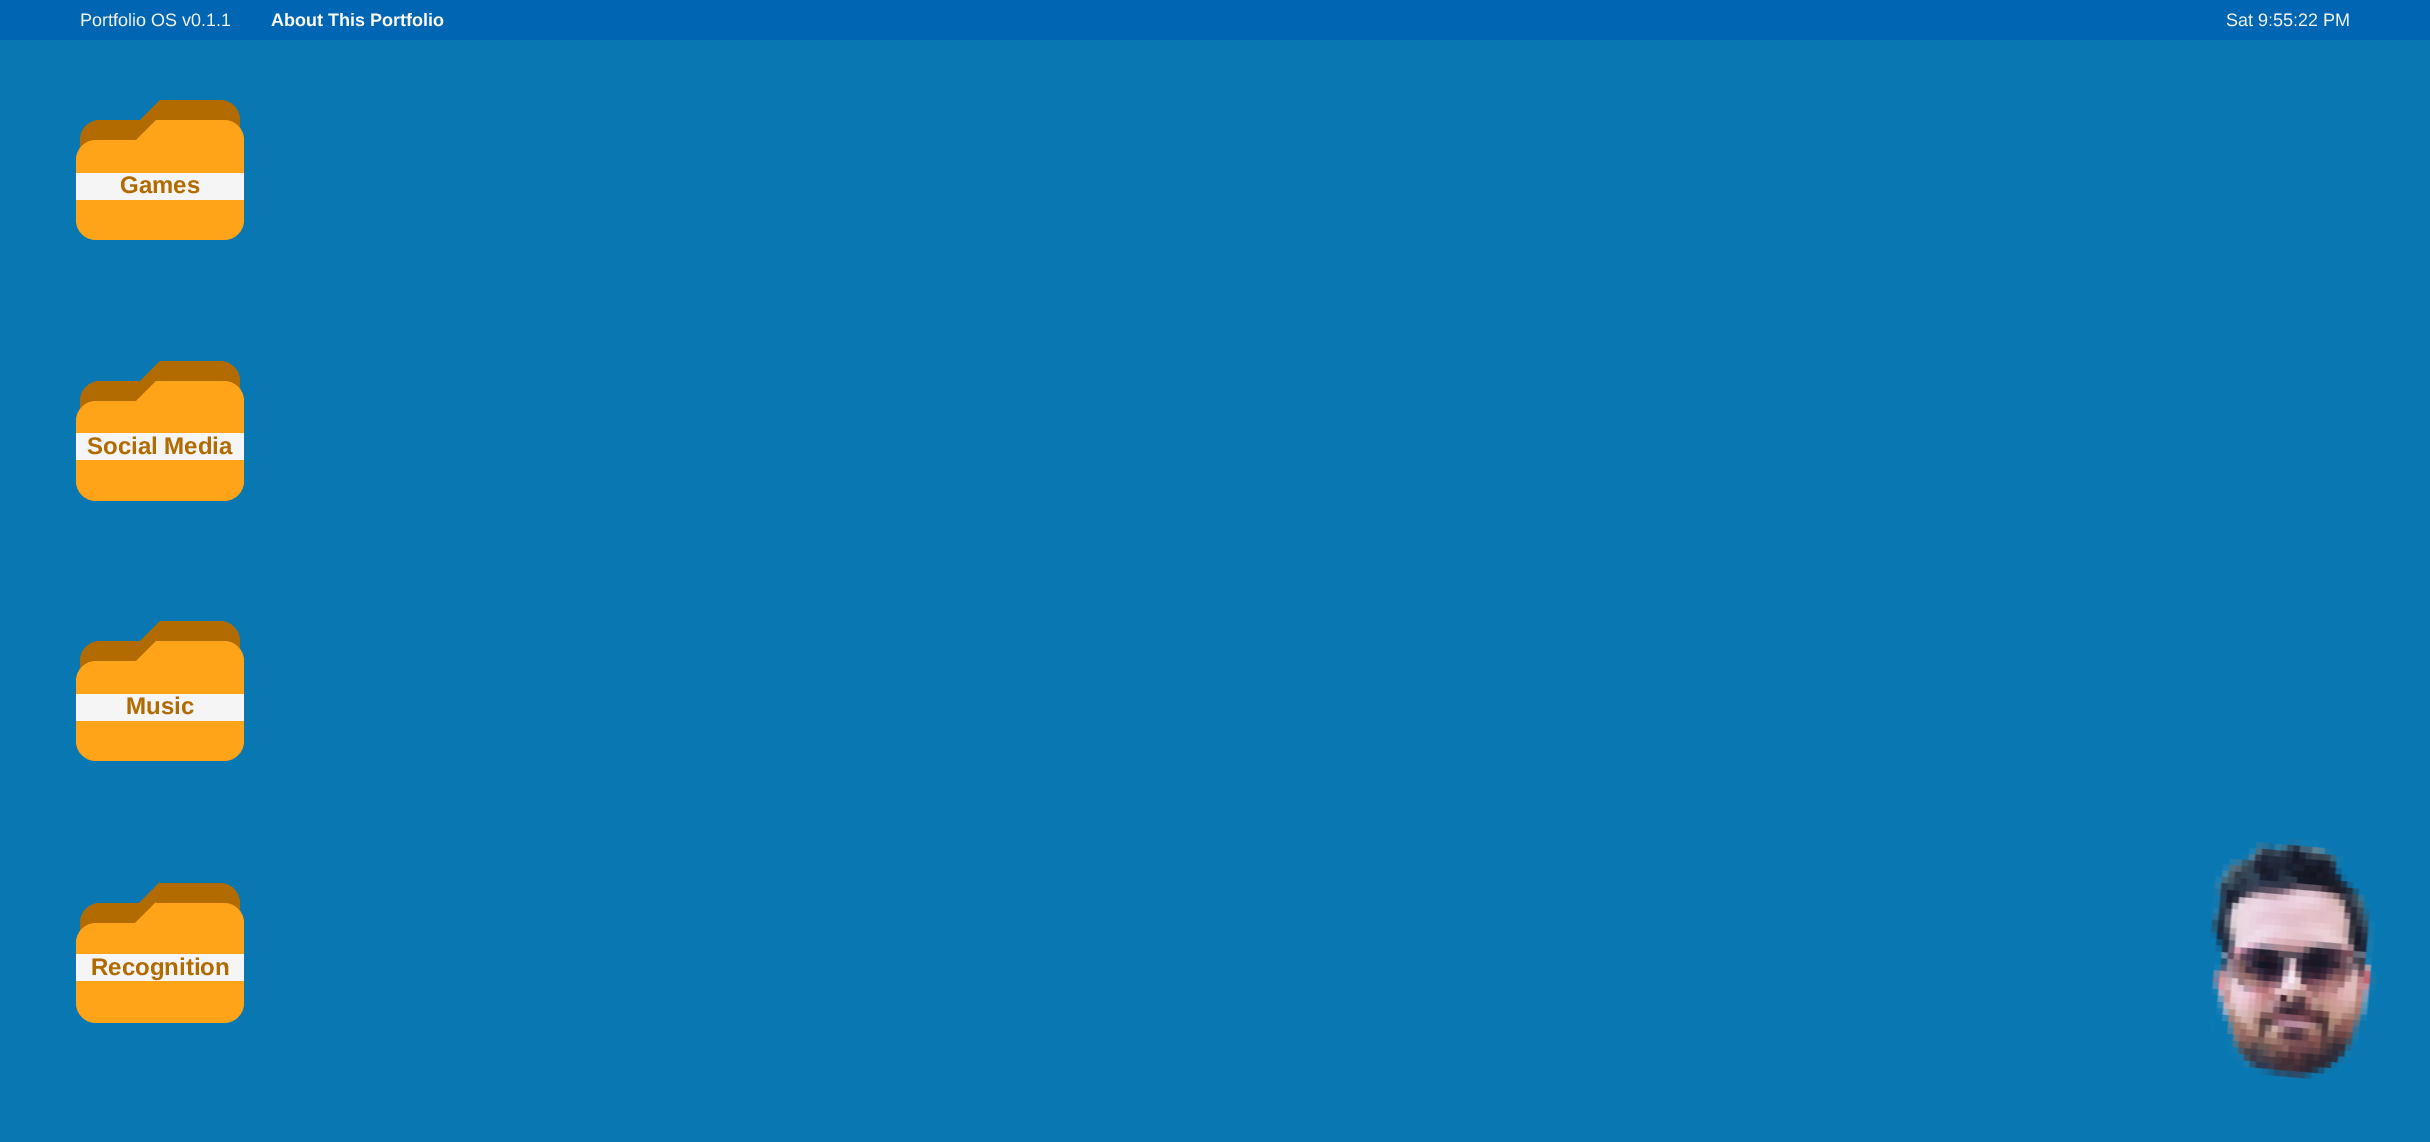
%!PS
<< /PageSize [2430 1142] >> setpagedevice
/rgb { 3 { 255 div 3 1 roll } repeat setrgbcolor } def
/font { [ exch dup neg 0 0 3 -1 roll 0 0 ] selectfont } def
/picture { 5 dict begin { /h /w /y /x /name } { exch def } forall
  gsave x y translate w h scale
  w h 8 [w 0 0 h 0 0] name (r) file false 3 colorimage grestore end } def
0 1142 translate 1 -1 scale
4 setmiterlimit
9 120 178 rgb
0 0 2430 1142 rectfill
0 101 178 rgb
0 0 2430 40 rectfill
178 107 0 rgb
100 120 moveto 160 120 lineto 160 220 lineto 100 220 lineto 89 220 80 211 80 200 curveto 80 140 lineto 80 129 89 120 100 120 curveto closepath fill
160 140 moveto 120 140 lineto 160 100 lineto closepath fill
160 100 moveto 220 100 lineto 231 100 240 109 240 120 curveto 240 220 lineto 160 220 lineto closepath fill
255 164 25 rgb
96 140 moveto 160 140 lineto 160 240 lineto 96 240 lineto 85 240 76 231 76 220 curveto 76 160 lineto 76 149 85 140 96 140 curveto closepath fill
156 160 moveto 116 160 lineto 156 120 lineto closepath fill
156 120 moveto 224 120 lineto 235 120 244 129 244 140 curveto 244 220 lineto 244 231 235 240 224 240 curveto 156 240 lineto closepath fill
245 245 245 rgb
76 173 168 27 rectfill
178 107 0 rgb
100 381 moveto 160 381 lineto 160 481 lineto 100 481 lineto 89 481 80 472 80 461 curveto 80 401 lineto 80 390 89 381 100 381 curveto closepath fill
160 401 moveto 120 401 lineto 160 361 lineto closepath fill
160 361 moveto 220 361 lineto 231 361 240 370 240 381 curveto 240 481 lineto 160 481 lineto closepath fill
255 164 25 rgb
96 401 moveto 160 401 lineto 160 501 lineto 96 501 lineto 85 501 76 492 76 481 curveto 76 421 lineto 76 410 85 401 96 401 curveto closepath fill
156 421 moveto 116 421 lineto 156 381 lineto closepath fill
156 381 moveto 224 381 lineto 235 381 244 390 244 401 curveto 244 481 lineto 244 492 235 501 224 501 curveto 156 501 lineto closepath fill
245 245 245 rgb
76 433 168 27 rectfill
178 107 0 rgb
100 641 moveto 160 641 lineto 160 741 lineto 100 741 lineto 89 741 80 732 80 721 curveto 80 661 lineto 80 650 89 641 100 641 curveto closepath fill
160 661 moveto 120 661 lineto 160 621 lineto closepath fill
160 621 moveto 220 621 lineto 231 621 240 630 240 641 curveto 240 741 lineto 160 741 lineto closepath fill
255 164 25 rgb
96 661 moveto 160 661 lineto 160 761 lineto 96 761 lineto 85 761 76 752 76 741 curveto 76 681 lineto 76 670 85 661 96 661 curveto closepath fill
156 681 moveto 116 681 lineto 156 641 lineto closepath fill
156 641 moveto 224 641 lineto 235 641 244 650 244 661 curveto 244 741 lineto 244 752 235 761 224 761 curveto 156 761 lineto closepath fill
245 245 245 rgb
76 694 168 27 rectfill
178 107 0 rgb
100 903 moveto 160 903 lineto 160 1003 lineto 100 1003 lineto 89 1003 80 994 80 983 curveto 80 923 lineto 80 912 89 903 100 903 curveto closepath fill
160 922 moveto 120 922 lineto 160 882 lineto closepath fill
160 883 moveto 220 883 lineto 231 883 240 892 240 903 curveto 240 1003 lineto 160 1003 lineto closepath fill
255 164 25 rgb
96 923 moveto 160 923 lineto 160 1023 lineto 96 1023 lineto 85 1023 76 1014 76 1003 curveto 76 943 lineto 76 932 85 923 96 923 curveto closepath fill
156 942 moveto 116 942 lineto 156 902 lineto closepath fill
156 903 moveto 224 903 lineto 235 903 244 912 244 923 curveto 244 1003 lineto 244 1014 235 1023 224 1023 curveto 156 1023 lineto closepath fill
245 245 245 rgb
76 954 168 27 rectfill
(img/1.rgb) 2210 838 167 241 picture
/LiberationSans-Regular 18 font
80 26 moveto (Portfolio OS v0.1.1) show
/LiberationSans-Bold 18 font
255 255 255 rgb
271 26 moveto (About This Portfolio) show
/LiberationSans-Regular 18 font
245 245 245 rgb
2226 26 moveto (Sat 9:55:22 PM) show
/LiberationSans-Bold 24 font
178 107 0 rgb
[
  [(Games) 120 193]
  [(Social Media) 87 454]
  [(Music) 126 714]
  [(Recognition) 91 975]
] { aload pop moveto show } forall
showpage
